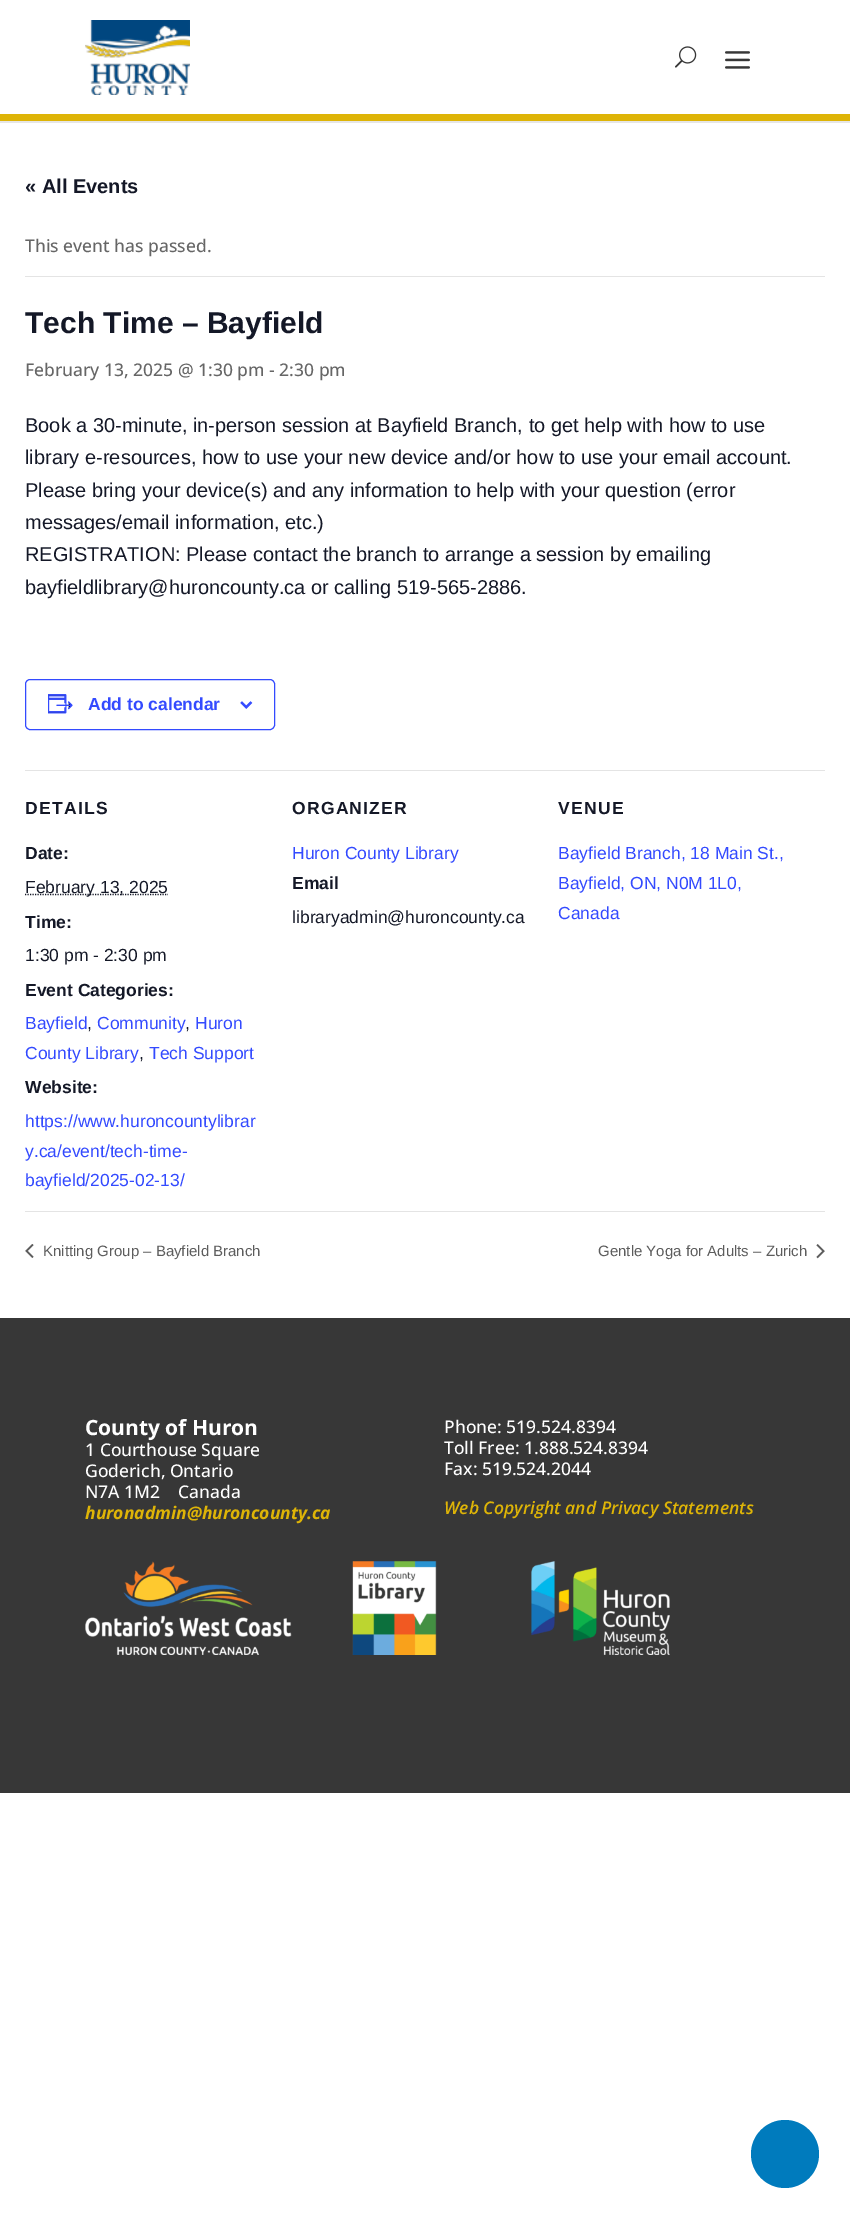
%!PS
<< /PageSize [850 2214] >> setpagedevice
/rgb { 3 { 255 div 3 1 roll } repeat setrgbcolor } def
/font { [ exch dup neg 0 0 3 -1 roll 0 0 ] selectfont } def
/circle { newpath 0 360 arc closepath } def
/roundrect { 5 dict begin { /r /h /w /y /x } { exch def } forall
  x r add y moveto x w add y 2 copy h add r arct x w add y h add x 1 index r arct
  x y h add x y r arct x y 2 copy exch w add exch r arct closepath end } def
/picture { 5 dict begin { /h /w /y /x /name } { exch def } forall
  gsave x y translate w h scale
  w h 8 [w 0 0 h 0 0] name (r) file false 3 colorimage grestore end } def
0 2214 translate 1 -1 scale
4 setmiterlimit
255 255 255 rgb
0 0 850 2214 rectfill
230 230 230 rgb
0 121 850 2 rectfill
222 180 6 rgb
0 114 850 7 rectfill
(img/1.rgb) 85 20 105 75 picture
(img/2.rgb) 675 46 22 22 picture
(img/3.rgb) 725 51 25 18 picture
228 228 228 rgb
25 276 800 1 rectfill
51 74 255 rgb
25.5 679.5 249 50 4.5 roundrect stroke
(img/4.rgb) 48 694 25 20 picture
(img/5.rgb) 240 701 13 8 picture
228 228 228 rgb
25 770 800 1 rectfill
20 24 39 rgb
1.2 setlinewidth
[1.25 1.25] 0 setdash
25 894.5 moveto 168 894.5 lineto stroke
228 228 228 rgb
25 1211 800 1 rectfill
(img/6.rgb) 25 1244 9 14 picture
(img/7.rgb) 816 1244 9 15 picture
55 55 55 rgb
0 1318 850 475 rectfill
(img/8.rgb) 85 1561 207 94 picture
(img/9.rgb) 352 1561 85 94 picture
(img/10.rgb) 531 1561 139 94 picture
0 123 189 rgb
785 2154 34 circle fill
/LiberationSans-Bold 20 font
20 24 39 rgb
25 193 moveto (« All Events) show
/OpenSans-Medium 17.5 font
102 102 102 rgb
25 252 moveto (This event has passed.) show
/LiberationSans-Bold 30 font
20 24 39 rgb
25 333 moveto (Tech Time – Bayfield) show
/OpenSans-Medium 17.5 font
102 102 102 rgb
25 376 moveto (February 13, 2025 @ 1:30 pm - 2:30 pm) show
/LiberationSans-Regular 20 font
20 24 39 rgb
[
  [(Book a 30-minute, in-person session at Bayfield Branch, to get help with how to use) 25 432]
  [(library e-resources, how to use your new device and/or how to use your email account.) 25 464]
  [(Please bring your device\(s\) and any information to help with your question \(error) 25 497]
  [(messages/email information, etc.\)) 25 529]
  [(REGISTRATION: Please contact the branch to arrange a session by emailing) 25 561]
  [(bayfieldlibrary@huroncounty.ca or calling 519-565-2886.) 25 594]
] { aload pop moveto show } forall
/LiberationSans-Bold 17.5 font
51 74 255 rgb
88 710 moveto (Add to calendar) show
20 24 39 rgb
25 814 moveto 1.25 0 (DETAILS) ashow
25 859 moveto (Date:) show
/LiberationSans-Regular 17.5 font
25 893 moveto (February 13, 2025) show
/LiberationSans-Bold 17.5 font
25 928 moveto (Time:) show
/LiberationSans-Regular 17.5 font
25 961 moveto (1:30 pm - 2:30 pm) show
/LiberationSans-Bold 17.5 font
25 996 moveto (Event Categories:) show
/LiberationSans-Regular 17.5 font
51 74 255 rgb
25 1029 moveto (Bayfield) show
20 24 39 rgb
87 1029 moveto (,) show
51 74 255 rgb
97 1029 moveto (Community) show
20 24 39 rgb
185 1029 moveto (,) show
51 74 255 rgb
195 1029 moveto (Huron) show
25 1059 moveto (County Library) show
20 24 39 rgb
139 1059 moveto (,) show
51 74 255 rgb
149 1059 moveto (Tech Support) show
/LiberationSans-Bold 17.5 font
20 24 39 rgb
25 1093 moveto (Website:) show
/LiberationSans-Regular 17.5 font
51 74 255 rgb
[
  [(https://www.huroncountylibrar) 25 1127]
  [(y.ca/event/tech-time-) 25 1157]
  [(bayfield/2025-02-13/) 25 1186]
] { aload pop moveto show } forall
/LiberationSans-Bold 17.5 font
20 24 39 rgb
292 814 moveto 1.25 0 (ORGANIZER) ashow
/LiberationSans-Regular 17.5 font
51 74 255 rgb
292 859 moveto (Huron County Library) show
/LiberationSans-Bold 17.5 font
20 24 39 rgb
292 889 moveto (Email) show
/LiberationSans-Regular 17.5 font
292 923 moveto (libraryadmin@huroncounty.ca) show
/LiberationSans-Bold 17.5 font
558 814 moveto 1.25 0 (VENUE) ashow
/LiberationSans-Regular 17.5 font
51 74 255 rgb
[
  [(Bayfield Branch, 18 Main St.,) 558 859]
  [(Bayfield, ON, N0M 1L0,) 558 889]
  [(Canada) 558 919]
] { aload pop moveto show } forall
/LiberationSans-Regular 15 font
93 93 93 rgb
43 1256 moveto (Knitting Group – Bayfield Branch) show
598 1256 moveto (Gentle Yoga for Adults – Zurich) show
/OpenSans-Bold 21 font
255 255 255 rgb
85 1435 moveto (County of Huron) show
/OpenSans-Medium 17.5 font
[
  [(1 Courthouse Square) 85 1456]
  [(Goderich, Ontario) 85 1477]
  [(N7A 1M2    Canada) 85 1498]
] { aload pop moveto show } forall
/OpenSans-BoldItalic 17.5 font
222 180 7 rgb
85 1519 moveto (huronadmin@huroncounty.ca) show
/OpenSans-Medium 17.5 font
255 255 255 rgb
[
  [(Phone: 519.524.8394) 444 1433]
  [(Toll Free: 1.888.524.8394) 444 1454]
  [(Fax: 519.524.2044) 444 1475]
] { aload pop moveto show } forall
/OpenSans-SemiBoldItalic 17.5 font
222 180 7 rgb
444 1514 moveto (Web Copyright and Privacy Statements) show
showpage
